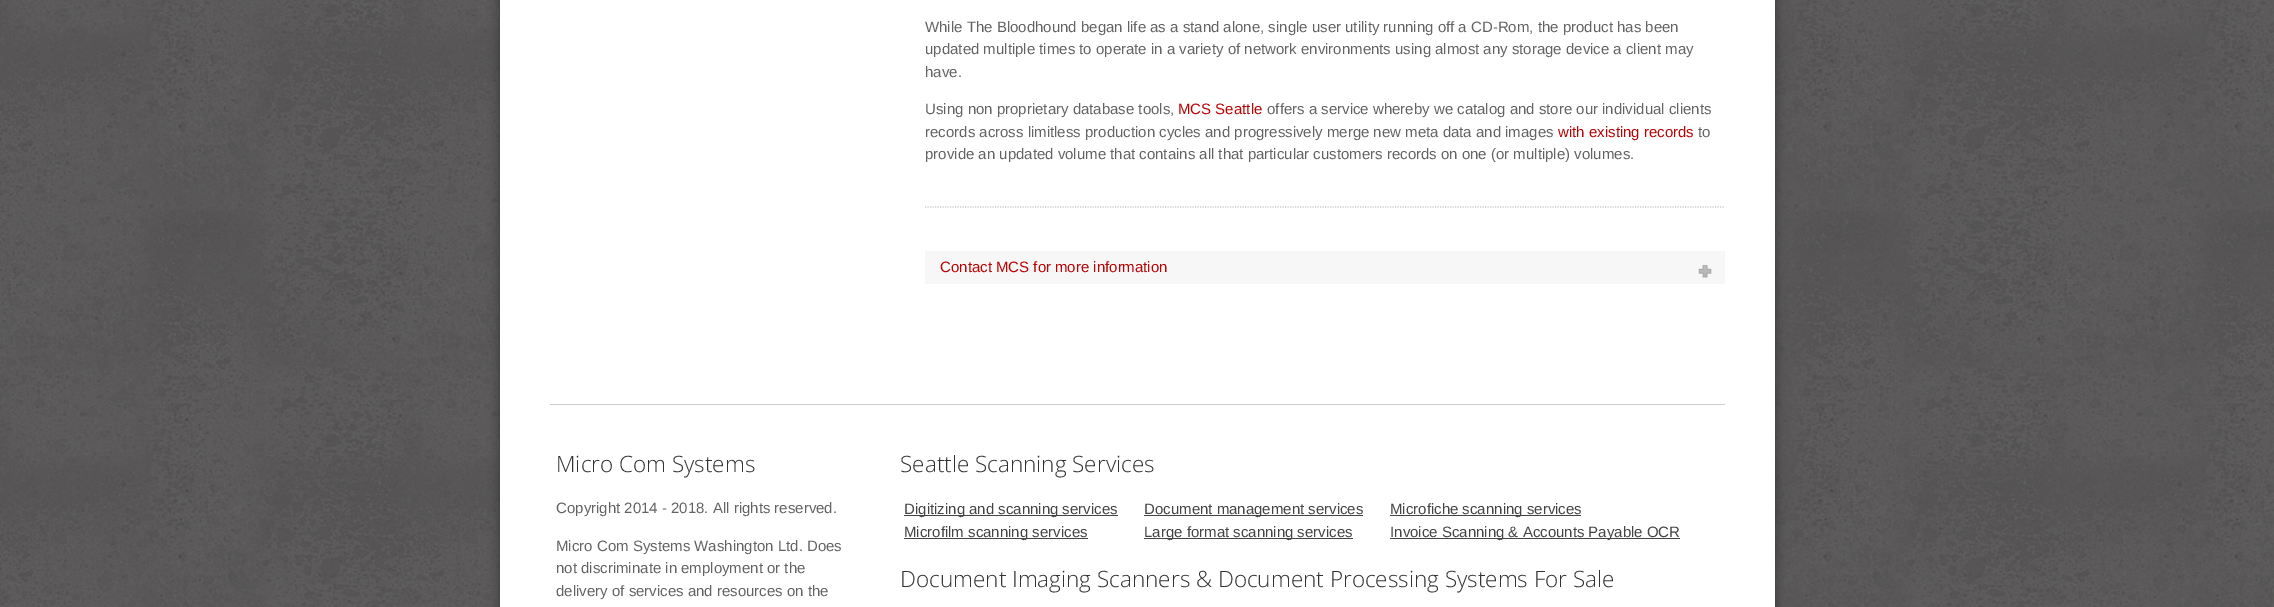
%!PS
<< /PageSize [2274 607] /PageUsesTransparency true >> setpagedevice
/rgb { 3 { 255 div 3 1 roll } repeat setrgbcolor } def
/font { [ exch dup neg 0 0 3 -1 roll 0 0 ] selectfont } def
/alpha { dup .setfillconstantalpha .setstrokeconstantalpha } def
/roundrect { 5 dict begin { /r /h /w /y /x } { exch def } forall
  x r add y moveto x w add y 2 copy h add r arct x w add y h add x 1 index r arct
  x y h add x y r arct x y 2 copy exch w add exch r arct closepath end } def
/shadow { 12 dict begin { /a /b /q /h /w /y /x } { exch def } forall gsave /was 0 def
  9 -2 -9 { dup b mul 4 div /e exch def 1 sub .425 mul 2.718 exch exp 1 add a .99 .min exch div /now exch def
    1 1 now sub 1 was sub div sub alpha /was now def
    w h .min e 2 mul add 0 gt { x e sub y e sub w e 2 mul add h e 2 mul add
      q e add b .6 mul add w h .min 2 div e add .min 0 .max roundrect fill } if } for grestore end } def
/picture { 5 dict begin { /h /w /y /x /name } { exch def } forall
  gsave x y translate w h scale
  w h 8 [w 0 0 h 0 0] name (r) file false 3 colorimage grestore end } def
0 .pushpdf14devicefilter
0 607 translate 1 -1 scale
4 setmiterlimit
255 255 255 rgb
0 0 2274 607 rectfill
(img/1.rgb) 0 0 2274 607 picture
51 51 51 rgb
500 -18 1275 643 0 6 1 shadow
255 255 255 rgb
500 0 1275 607 rectfill
204 204 204 rgb
1.2 setlinewidth
[1.25 1.25] 0 setdash
925 207 moveto 1725 207 lineto stroke
247 247 247 rgb
925 251 800 33 rectfill
(img/2.rgb) 1698 264 14 14 picture
[
  [550 404 1175 1 204 204 204]
  [904 515 214 1 68 68 68]
  [1144 515 219 1 68 68 68]
  [1390 515 191 1 68 68 68]
  [904 538 184 1 68 68 68]
  [1144 538 209 1 68 68 68]
  [1390 538 290 1 68 68 68]
] { aload pop rgb rectfill } forall
/LiberationSans-Regular 15 font
99 99 99 rgb
[
  [(While The Bloodhound began life as a stand alone, single user utility running off a CD-Rom, the product has been) 925 32]
  [(updated multiple times to operate in a variety of network environments using almost any storage device a client may) 925 54]
  [(have.) 925 77]
  [(Using non proprietary database tools,) 925 114]
] { aload pop moveto show } forall
183 4 4 rgb
1178 114 moveto (MCS Seattle) show
99 99 99 rgb
1267 114 moveto (offers a service whereby we catalog and store our individual clients) show
925 137 moveto (records across limitless production cycles and progressively merge new meta data and images) show
183 4 4 rgb
1558 137 moveto (with existing records) show
99 99 99 rgb
1698 137 moveto (to) show
925 159 moveto (provide an updated volume that contains all that particular customers records on one \(or multiple\) volumes.) show
183 4 4 rgb
940 272 moveto (Contact MCS for more information) show
/OpenSans-Light 22.5 font
51 51 51 rgb
556 472 moveto (Micro Com Systems) show
/LiberationSans-Regular 15 font
99 99 99 rgb
[
  [(Copyright 2014 - 2018. All rights reserved.) 556 513]
  [(Micro Com Systems Washington Ltd. Does) 556 551]
  [(not discriminate in employment or the) 556 573]
  [(delivery of services and resources on the) 556 596]
] { aload pop moveto show } forall
/OpenSans-Light 22.5 font
51 51 51 rgb
900 472 moveto (Seattle Scanning Services) show
/LiberationSans-Regular 15 font
68 68 68 rgb
[
  [(Digitizing and scanning services) 904 514]
  [(Document management services) 1144 514]
  [(Microfiche scanning services) 1390 514]
  [(Microfilm scanning services) 904 537]
  [(Large format scanning services) 1144 537]
  [(Invoice Scanning & Accounts Payable OCR) 1390 537]
] { aload pop moveto show } forall
/OpenSans-Light 22.5 font
51 51 51 rgb
900 587 moveto (Document Imaging Scanners & Document Processing Systems For Sale) show
.poppdf14devicefilter showpage
